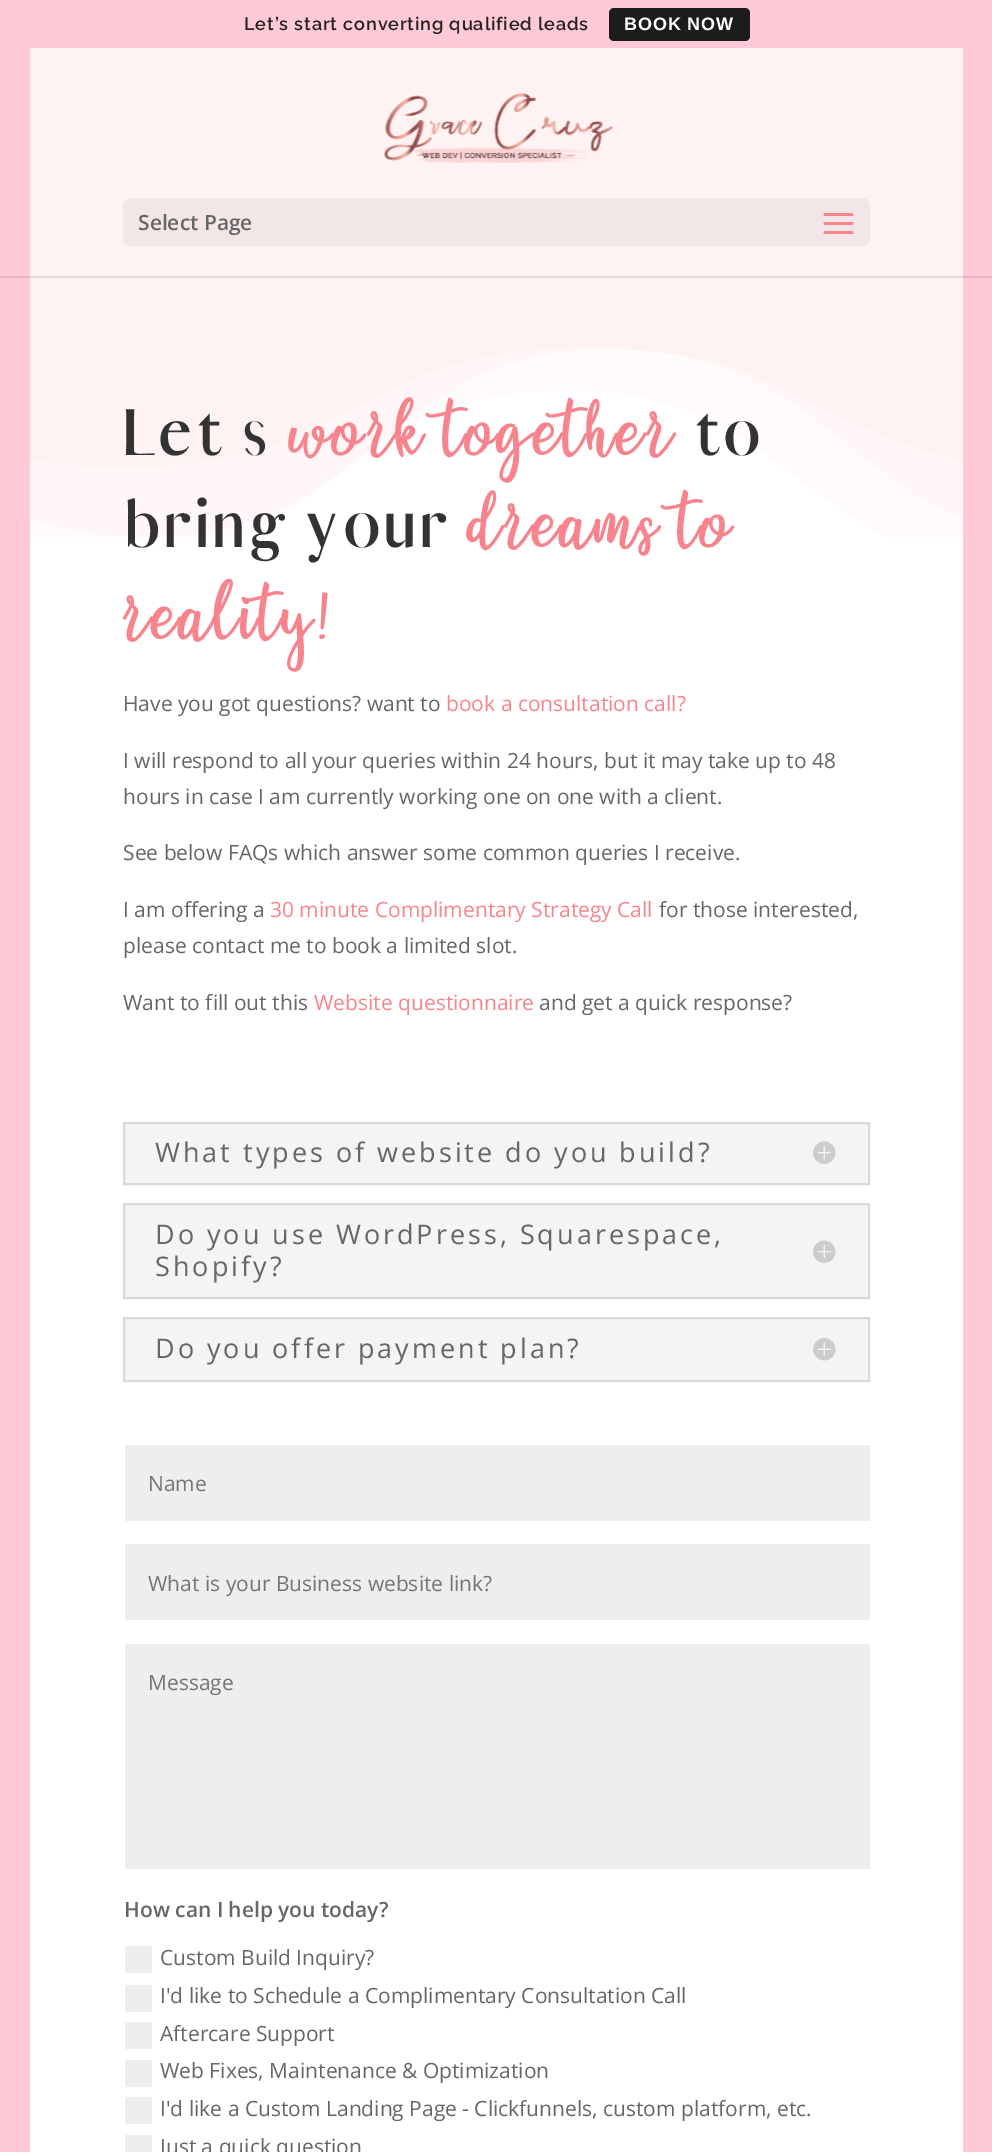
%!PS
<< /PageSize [992 2152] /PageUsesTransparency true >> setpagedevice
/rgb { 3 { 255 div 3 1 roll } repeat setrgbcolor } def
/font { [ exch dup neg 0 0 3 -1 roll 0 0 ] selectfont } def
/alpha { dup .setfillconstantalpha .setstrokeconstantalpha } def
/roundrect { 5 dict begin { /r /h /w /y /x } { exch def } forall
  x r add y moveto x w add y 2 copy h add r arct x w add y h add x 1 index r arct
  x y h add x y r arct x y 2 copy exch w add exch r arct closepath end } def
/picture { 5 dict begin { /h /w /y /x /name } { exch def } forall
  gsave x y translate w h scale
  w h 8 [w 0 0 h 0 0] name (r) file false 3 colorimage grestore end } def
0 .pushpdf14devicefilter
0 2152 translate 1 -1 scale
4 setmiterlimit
255 255 255 rgb
0 0 992 2152 rectfill
255 201 214 rgb
0 0 992 48 rectfill
28 28 28 rgb
609 8 141 33 5 roundrect fill
255 201 214 rgb
963 48 29 2104 rectfill
0 48 30 2104 rectfill
(img/3.rgb) 30 276 933 261 picture
0.1 alpha
0 0 0 rgb
0 276 992 2 rectfill
1 alpha
255 242 242 rgb
30 48 933 228 rectfill
(img/1.rgb) 383 93 231 71 picture
242 230 230 rgb
123 198 747 48 8 roundrect fill
(img/2.rgb) 823 213 31 21 picture
244 244 244 rgb
124 1123 moveto 869 1123 lineto 869 1184 lineto 124 1184 lineto closepath gsave fill grestore
217 217 217 rgb
2 setlinewidth
stroke
(img/4.rgb) 813 1141 23 23 picture
244 244 244 rgb
124 1204 moveto 869 1204 lineto 869 1298 lineto 124 1298 lineto closepath gsave fill grestore
217 217 217 rgb
stroke
(img/4.rgb) 813 1240 23 23 picture
244 244 244 rgb
124 1318 moveto 869 1318 lineto 869 1381 lineto 124 1381 lineto closepath gsave fill grestore
217 217 217 rgb
stroke
(img/5.rgb) 813 1338 23 23 picture
[
  [125 1445 745 76 238 238 238]
  [125 1544 745 76 238 238 238]
  [125 1644 745 225 238 238 238]
  [125 1946 27 27 238 238 238]
  [125 1985 27 27 238 238 238]
  [125 2022 27 27 238 238 238]
  [125 2060 27 27 238 238 238]
  [125 2097 27 27 238 238 238]
  [125 2135 27 17 238 238 238]
] { aload pop rgb rectfill } forall
/Raleway-SemiBold 18 font
34 34 34 rgb
244 30 moveto 0.9 0 (Let’s start converting qualified leads) ashow
/LiberationSans-Bold 18 font
255 255 255 rgb
624 30 moveto 0.9 0 (BOOK NOW) ashow
/OpenSans-SemiBold 21 font
102 102 102 rgb
138 230 moveto (Select Page) show
/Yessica-Bold 63 font
51 51 51 rgb
123 455 moveto 3 0 (Let’s) ashow
/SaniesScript-Bold 63 font
247 131 141 rgb
291 455 moveto 3 0 (work together) ashow
/Yessica-Bold 63 font
51 51 51 rgb
694 455 moveto 3 0 (to) ashow
123 547 moveto 3 0 (bring your) ashow
/SaniesScript-Bold 63 font
247 131 141 rgb
469 547 moveto 3 0 (dreams to) ashow
123 639 moveto 3 0 (reality!) ashow
/OpenSans-Regular 21 font
102 102 102 rgb
123 711 moveto (Have you got questions? want to) show
247 131 141 rgb
446 711 moveto (book a consultation call?) show
102 102 102 rgb
[
  [(I will respond to all your queries within 24 hours, but it may take up to 48) 123 768]
  [(hours in case I am currently working one on one with a client.) 123 804]
  [(See below FAQs which answer some common queries I receive.) 123 860]
  [(I am offering a) 123 917]
] { aload pop moveto show } forall
247 131 141 rgb
270 917 moveto (30 minute Complimentary Strategy Call) show
102 102 102 rgb
[
  [(for those interested,) 659 917]
  [(please contact me to book a limited slot.) 123 953]
  [(Want to fill out this) 123 1010]
] { aload pop moveto show } forall
247 131 141 rgb
314 1010 moveto (Website questionnaire) show
102 102 102 rgb
539 1010 moveto (and get a quick response?) show
/OpenSans-Regular 27 font
155 1162 moveto 3 0 (What types of website do you build?) ashow
155 1244 moveto 3 0 (Do you use WordPress, Squarespace,) ashow
155 1276 moveto 3 0 (Shopify?) ashow
155 1358 moveto 3 0 (Do you offer payment plan?) ashow
/OpenSans-Regular 21 font
117 117 117 rgb
[
  [(Name) 148 1491]
  [(What is your Business website link?) 148 1591]
  [(Message) 148 1690]
] { aload pop moveto show } forall
/OpenSans-SemiBold 21 font
102 102 102 rgb
124 1917 moveto (How can I help you today?) show
/OpenSans-Regular 21 font
[
  [(Custom Build Inquiry?) 160 1965]
  [(I'd like to Schedule a Complimentary Consultation Call) 160 2003]
  [(Aftercare Support) 160 2041]
  [(Web Fixes, Maintenance & Optimization) 160 2078]
  [(I'd like a Custom Landing Page - Clickfunnels, custom platform, etc.) 160 2116]
  [(Just a quick question) 160 2154]
] { aload pop moveto show } forall
.poppdf14devicefilter showpage
